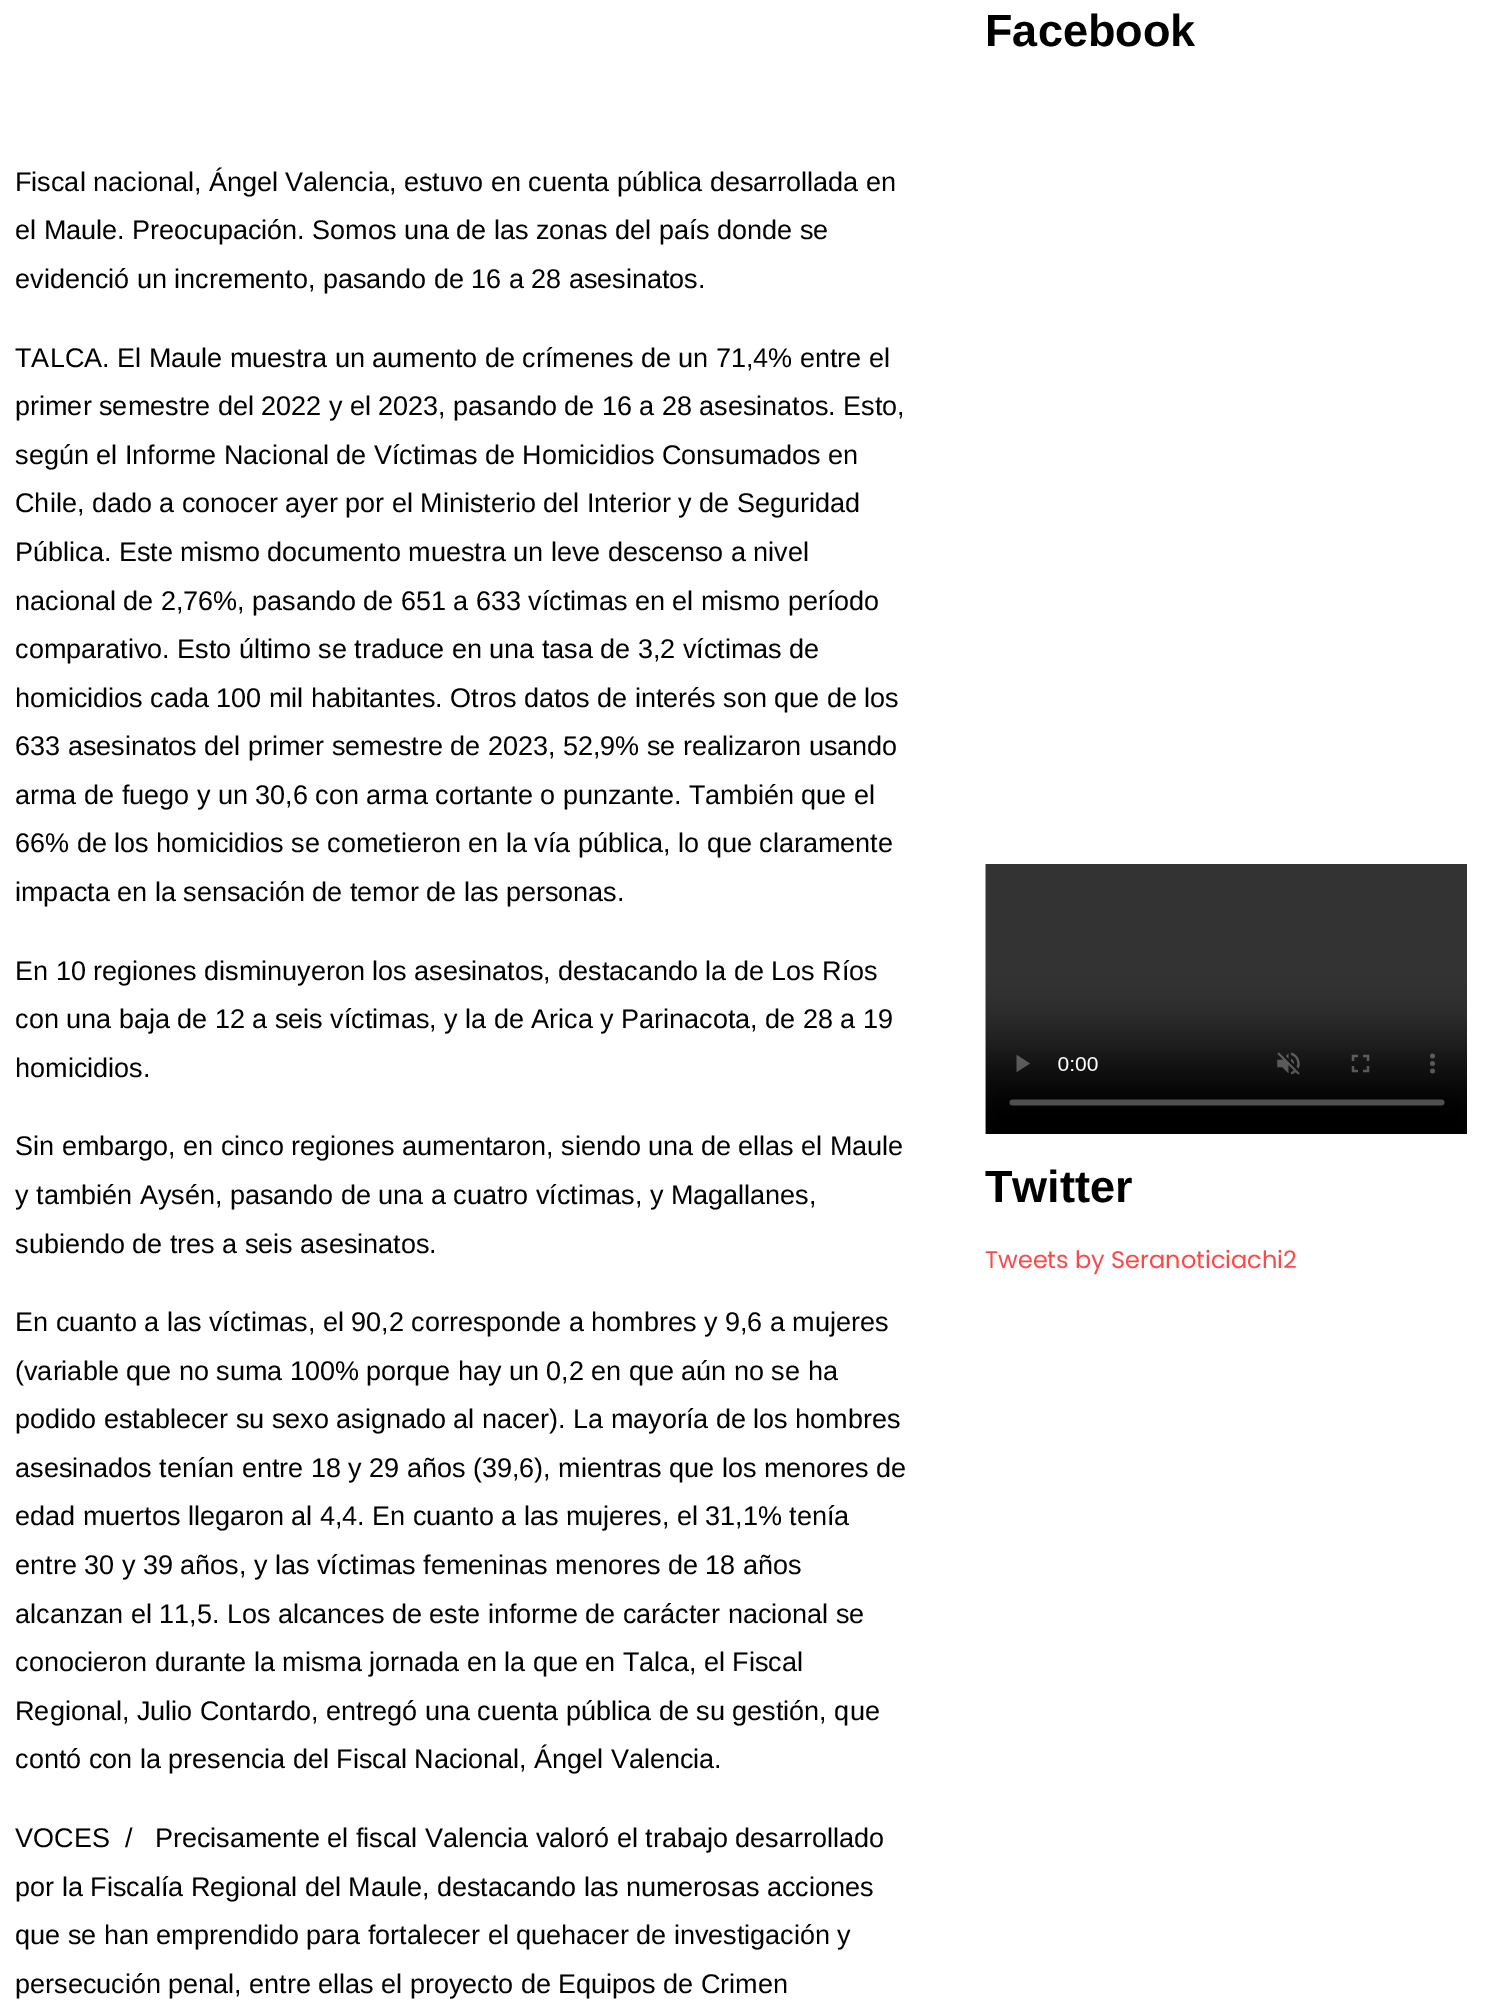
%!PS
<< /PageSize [1492 2006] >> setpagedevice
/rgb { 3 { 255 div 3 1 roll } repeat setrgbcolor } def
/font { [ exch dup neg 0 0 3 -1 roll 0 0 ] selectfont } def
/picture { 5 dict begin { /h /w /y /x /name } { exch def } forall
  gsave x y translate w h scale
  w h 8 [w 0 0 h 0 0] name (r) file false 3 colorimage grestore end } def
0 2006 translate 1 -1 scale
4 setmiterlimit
255 255 255 rgb
0 0 1492 2006 rectfill
(img/1.rgb) 985 864 482 270 picture
/LiberationSans-Regular 27 font
0 0 0 rgb
[
  [(Fiscal nacional, Ángel Valencia, estuvo en cuenta pública desarrollada en) 15 191]
  [(el Maule. Preocupación. Somos una de las zonas del país donde se) 15 239]
  [(evidenció un incremento, pasando de 16 a 28 asesinatos.) 15 288]
  [(TALCA. El Maule muestra un aumento de crímenes de un 71,4% entre el) 15 367]
  [(primer semestre del 2022 y el 2023, pasando de 16 a 28 asesinatos. Esto,) 15 415]
  [(según el Informe Nacional de Víctimas de Homicidios Consumados en) 15 464]
  [(Chile, dado a conocer ayer por el Ministerio del Interior y de Seguridad) 15 512]
  [(Pública. Este mismo documento muestra un leve descenso a nivel) 15 561]
  [(nacional de 2,76%, pasando de 651 a 633 víctimas en el mismo período) 15 610]
  [(comparativo. Esto último se traduce en una tasa de 3,2 víctimas de) 15 658]
  [(homicidios cada 100 mil habitantes. Otros datos de interés son que de los) 15 707]
  [(633 asesinatos del primer semestre de 2023, 52,9% se realizaron usando) 15 755]
  [(arma de fuego y un 30,6 con arma cortante o punzante. También que el) 15 804]
  [(66% de los homicidios se cometieron en la vía pública, lo que claramente) 15 852]
  [(impacta en la sensación de temor de las personas.) 15 901]
  [(En 10 regiones disminuyeron los asesinatos, destacando la de Los Ríos) 15 980]
  [(con una baja de 12 a seis víctimas, y la de Arica y Parinacota, de 28 a 19) 15 1028]
  [(homicidios.) 15 1077]
  [(Sin embargo, en cinco regiones aumentaron, siendo una de ellas el Maule) 15 1155]
  [(y también Aysén, pasando de una a cuatro víctimas, y Magallanes,) 15 1204]
  [(subiendo de tres a seis asesinatos.) 15 1253]
  [(En cuanto a las víctimas, el 90,2 corresponde a hombres y 9,6 a mujeres) 15 1331]
  [(\(variable que no suma 100% porque hay un 0,2 en que aún no se ha) 15 1380]
  [(podido establecer su sexo asignado al nacer\). La mayoría de los hombres) 15 1428]
  [(asesinados tenían entre 18 y 29 años \(39,6\), mientras que los menores de) 15 1477]
  [(edad muertos llegaron al 4,4. En cuanto a las mujeres, el 31,1% tenía) 15 1525]
  [(entre 30 y 39 años, y las víctimas femeninas menores de 18 años) 15 1574]
  [(alcanzan el 11,5. Los alcances de este informe de carácter nacional se) 15 1623]
  [(conocieron durante la misma jornada en la que en Talca, el Fiscal) 15 1671]
  [(Regional, Julio Contardo, entregó una cuenta pública de su gestión, que) 15 1720]
  [(contó con la presencia del Fiscal Nacional, Ángel Valencia.) 15 1768]
  [(VOCES  /   Precisamente el fiscal Valencia valoró el trabajo desarrollado) 15 1847]
  [(por la Fiscalía Regional del Maule, destacando las numerosas acciones) 15 1896]
  [(que se han emprendido para fortalecer el quehacer de investigación y) 15 1944]
  [(persecución penal, entre ellas el proyecto de Equipos de Crimen) 15 1993]
] { aload pop moveto show } forall
/LiberationSans-Bold 45 font
985 46 moveto (Facebook) show
985 1202 moveto (Twitter) show
/Poppins-Regular 24 font
251 73 73 rgb
985 1268 moveto (Tweets by Seranoticiachi2) show
showpage
